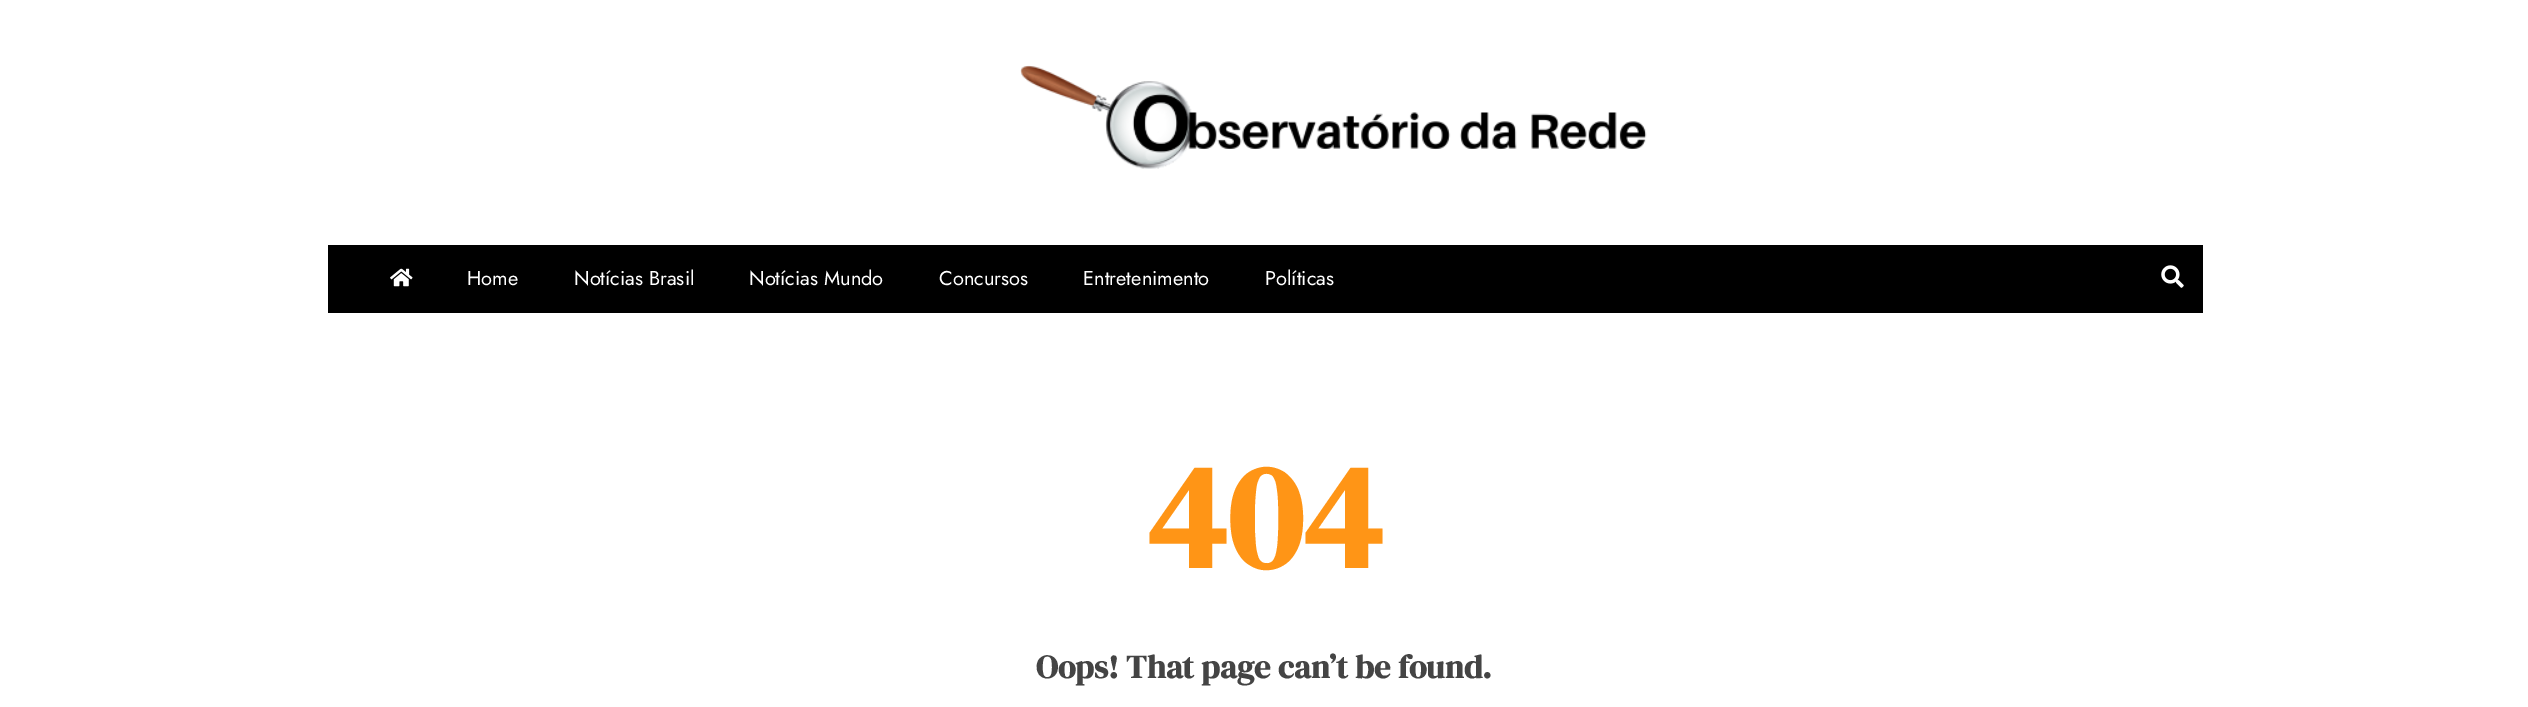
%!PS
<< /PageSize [2528 707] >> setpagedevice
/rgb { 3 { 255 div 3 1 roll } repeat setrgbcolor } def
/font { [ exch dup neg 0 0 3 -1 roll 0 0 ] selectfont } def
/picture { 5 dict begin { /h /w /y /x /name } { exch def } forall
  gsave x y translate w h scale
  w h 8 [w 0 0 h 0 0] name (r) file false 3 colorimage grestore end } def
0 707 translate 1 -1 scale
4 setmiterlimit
255 255 255 rgb
0 0 2528 707 rectfill
(img/1.rgb) 1020 65 627 104 picture
0 0 0 rgb
328 245 1875 68 rectfill
(img/2.rgb) 390 268 23 19 picture
(img/3.rgb) 2161 265 23 23 picture
/Jost-Regular 20 font
255 255 255 rgb
[
  [(Home) 467 285]
  [(Notícias Brasil) 574 285]
  [(Notícias Mundo) 749 285]
  [(Concursos) 939 285]
  [(Entretenimento) 1083 285]
  [(Políticas) 1265 285]
] { aload pop moveto show } forall
/DMSerifDisplay-Bold 150 font
255 149 22 rgb
1146 568 moveto (404) show
/DMSerifDisplay-Bold 32.5 font
68 68 68 rgb
1036 678 moveto (Oops! That page can’t be found.) show
showpage
